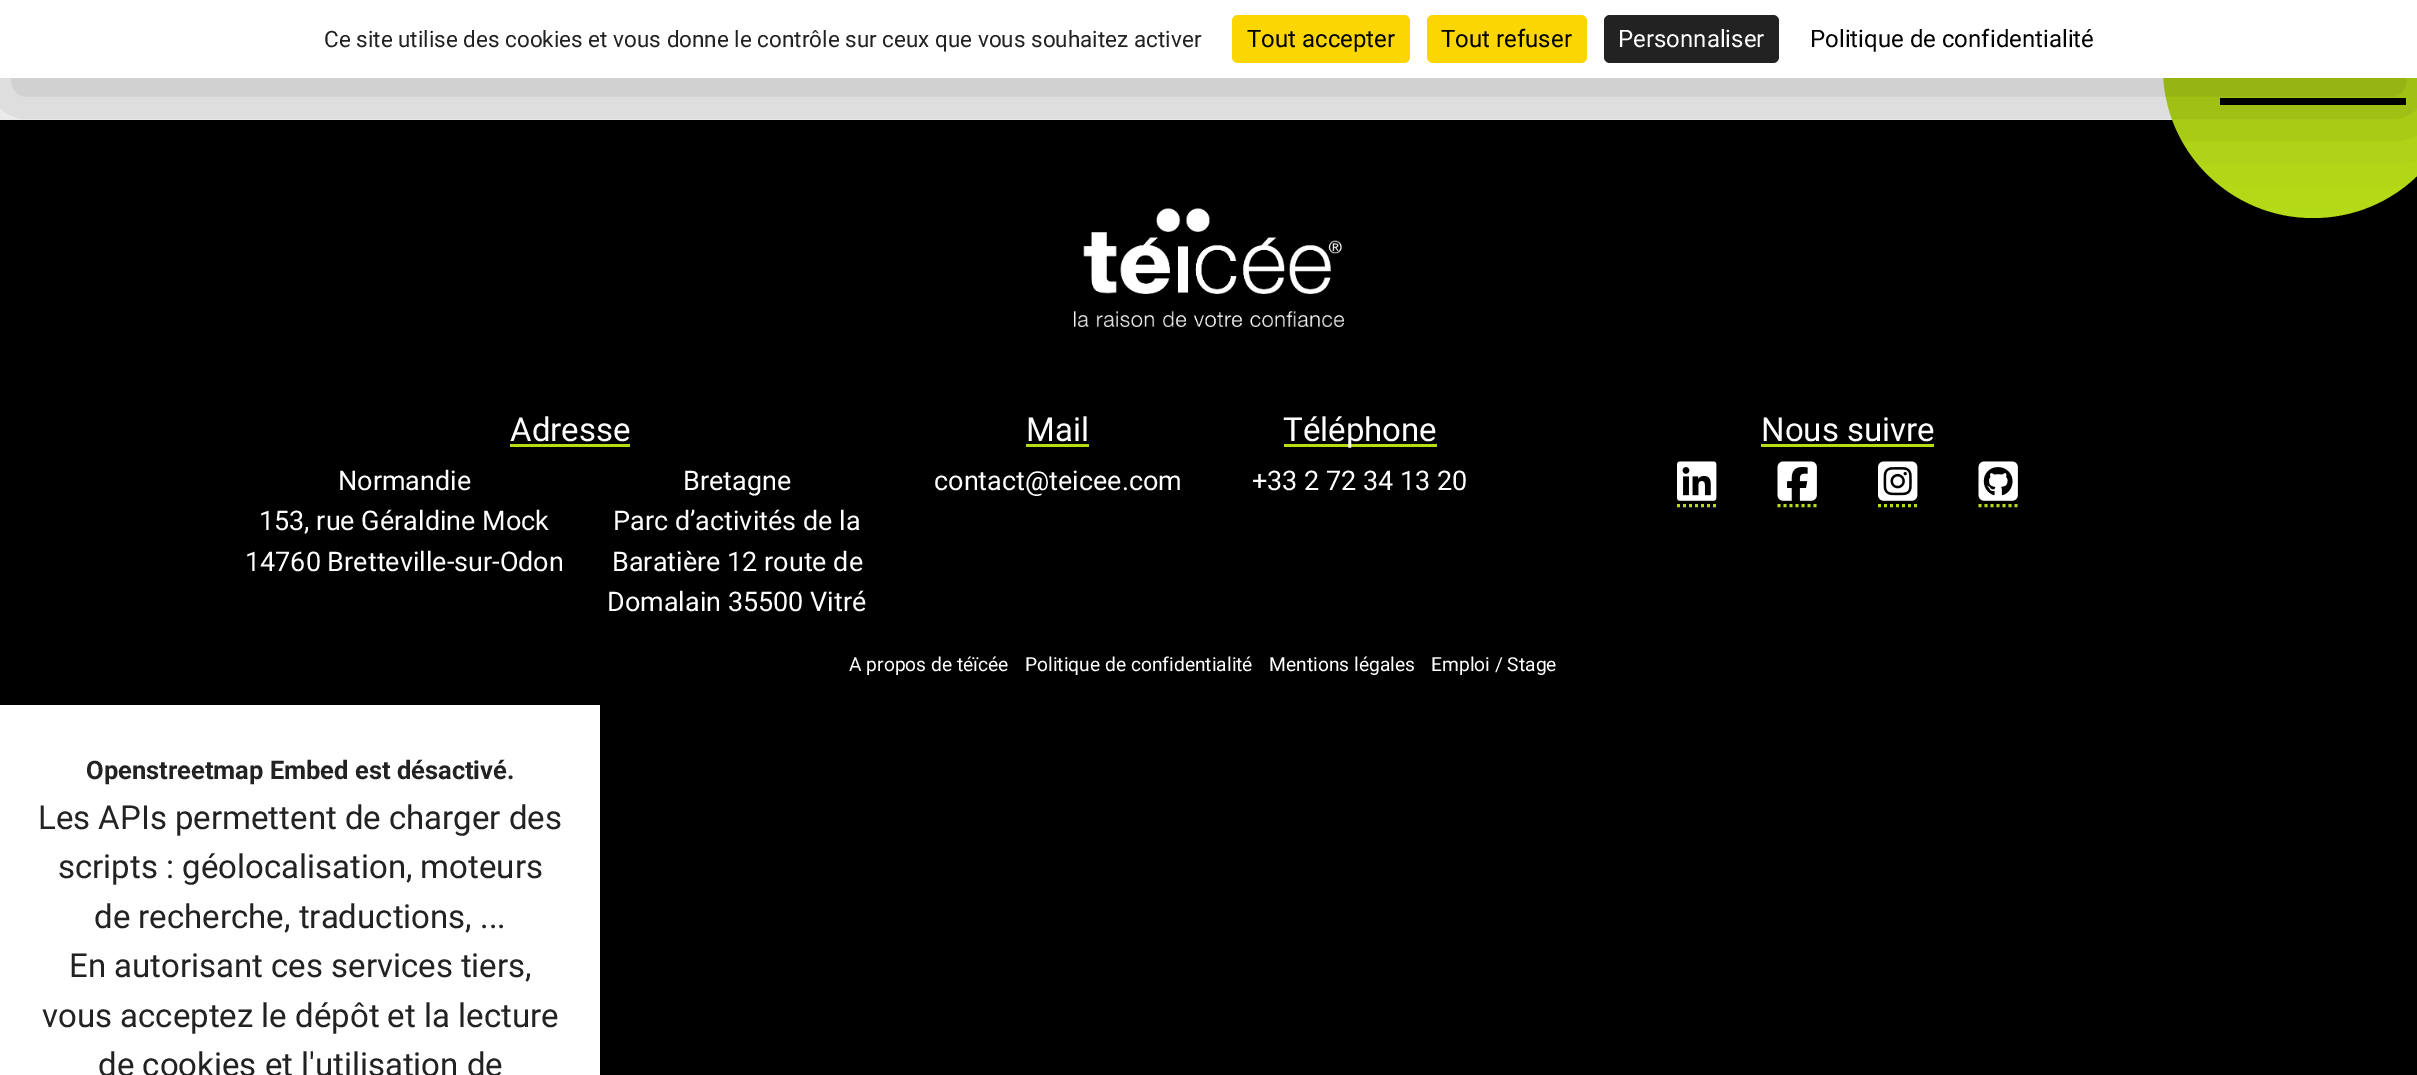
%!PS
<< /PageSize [2417 1075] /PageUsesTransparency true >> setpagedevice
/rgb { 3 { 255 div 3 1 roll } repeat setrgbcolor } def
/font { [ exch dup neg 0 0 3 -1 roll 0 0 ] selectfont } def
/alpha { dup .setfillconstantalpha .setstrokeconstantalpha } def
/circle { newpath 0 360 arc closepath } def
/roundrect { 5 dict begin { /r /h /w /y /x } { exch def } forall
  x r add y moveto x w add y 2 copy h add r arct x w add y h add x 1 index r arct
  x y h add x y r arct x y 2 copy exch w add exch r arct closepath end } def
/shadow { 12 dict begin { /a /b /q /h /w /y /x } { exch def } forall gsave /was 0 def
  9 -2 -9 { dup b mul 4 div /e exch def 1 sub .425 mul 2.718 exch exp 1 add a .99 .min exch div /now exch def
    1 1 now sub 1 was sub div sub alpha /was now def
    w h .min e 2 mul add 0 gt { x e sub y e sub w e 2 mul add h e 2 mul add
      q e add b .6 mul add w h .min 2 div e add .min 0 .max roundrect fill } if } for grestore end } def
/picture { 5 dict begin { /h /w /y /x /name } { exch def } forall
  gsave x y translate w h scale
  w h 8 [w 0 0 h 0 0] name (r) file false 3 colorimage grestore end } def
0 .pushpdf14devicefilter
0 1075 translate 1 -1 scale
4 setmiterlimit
255 255 255 rgb
0 0 2417 1075 rectfill
0 0 0 rgb
0 120 2417 955 rectfill
181 220 23 rgb
2313 68 150 circle fill
0 0 0 rgb
2220 98 186 7 rectfill
(img/1.rgb) 1074 208 270 119 picture
0 30 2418 78 0 45 0.25 shadow
255 255 255 rgb
0 0 2417 78 rectfill
251 214 0 rgb
1232 15 178 48 6 roundrect fill
1427 15 160 48 6 roundrect fill
34 34 34 rgb
1604 15 175 48 6 roundrect fill
[
  [510 444 120 3 181 220 23]
  [1026 444 63 3 181 220 23]
  [1284 444 153 3 181 220 23]
  [1761 444 173 3 181 220 23]
] { aload pop rgb rectfill } forall
3 setlinewidth
[3 3] 0 setdash
1677 505.5 moveto 1716 505.5 lineto stroke
(img/2.rgb) 1677 461 40 40 picture
1777.5 505.5 moveto 1816.5 505.5 lineto stroke
(img/3.rgb) 1777 461 40 40 picture
1878 505.5 moveto 1917 505.5 lineto stroke
(img/4.rgb) 1878 461 40 40 picture
1978.5 505.5 moveto 2017.5 505.5 lineto stroke
(img/5.rgb) 1978 461 40 40 picture
255 255 255 rgb
0 705 600 370 rectfill
/Roboto-Regular 22.5 font
34 34 34 rgb
324 47 moveto (Ce site utilise des cookies et vous donne le contrôle sur ceux que vous souhaitez activer) show
/Roboto-Regular 24 font
0 0 0 rgb
1247 47 moveto (Tout accepter) show
1441 47 moveto (Tout refuser) show
255 255 255 rgb
1618 47 moveto (Personnaliser) show
0 0 0 rgb
1810 47 moveto (Politique de confidentialité) show
/Roboto-Regular 33 font
255 255 255 rgb
510 441 moveto (Adresse) show
/Roboto-Regular 27 font
[
  [(Normandie) 338 490]
  [(153, rue Géraldine Mock) 259 530]
  [(14760 Bretteville-sur-Odon) 245 571]
  [(Bretagne) 683 490]
  [(Parc d’activités de la) 613 530]
  [(Baratière 12 route de) 612 571]
  [(Domalain 35500 Vitré) 607 611]
] { aload pop moveto show } forall
/Roboto-Regular 33 font
1026 441 moveto (Mail) show
/Roboto-Regular 27 font
934 490 moveto (contact@teicee.com) show
/Roboto-Regular 33 font
1283 441 moveto (Téléphone) show
/Roboto-Regular 27 font
1252 490 moveto (+33 2 72 34 13 20) show
/Roboto-Regular 33 font
1761 441 moveto (Nous suivre) show
/Roboto-Regular 19.25 font
[
  [(A propos de téïcée) 849 671]
  [(Politique de confidentialité) 1025 671]
  [(Mentions légales) 1269 671]
  [(Emploi / Stage) 1431 671]
] { aload pop moveto show } forall
/Roboto-Bold 25.5 font
34 34 34 rgb
86 779 moveto (Openstreetmap Embed est désactivé.) show
/Roboto-Regular 33 font
[
  [(Les APIs permettent de charger des) 38 829]
  [(scripts : géolocalisation, moteurs) 58 878]
  [(de recherche, traductions, ...) 94 928]
  [(En autorisant ces services tiers,) 69 977]
  [(vous acceptez le dépôt et la lecture) 42 1027]
  [(de cookies et l'utilisation de) 98 1076]
] { aload pop moveto show } forall
.poppdf14devicefilter showpage
